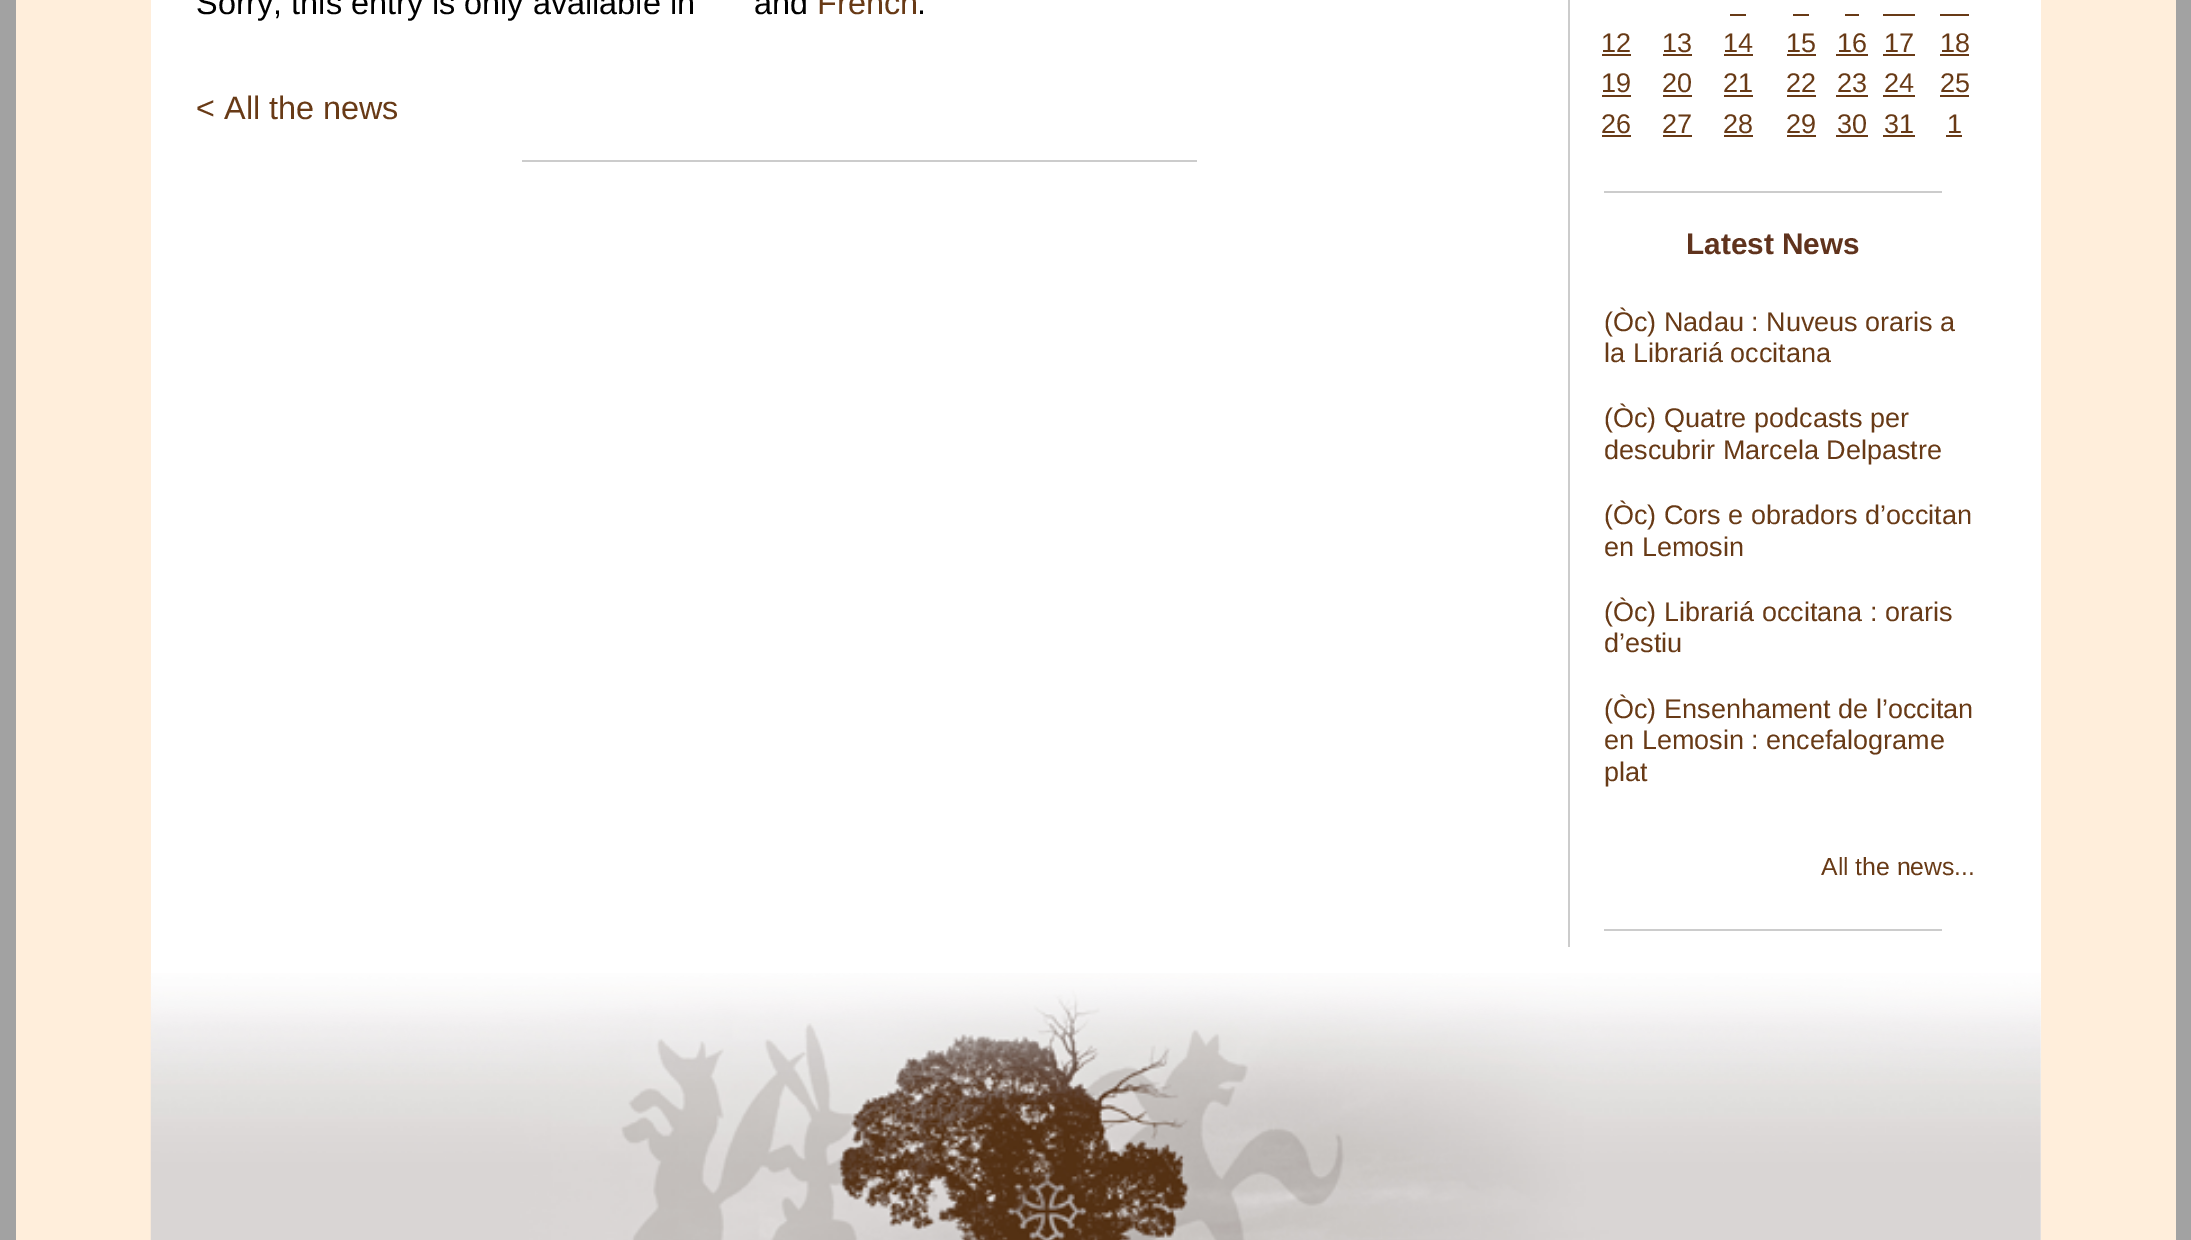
%!PS
<< /PageSize [2191 1240] >> setpagedevice
/rgb { 3 { 255 div 3 1 roll } repeat setrgbcolor } def
/font { [ exch dup neg 0 0 3 -1 roll 0 0 ] selectfont } def
/picture { 5 dict begin { /h /w /y /x /name } { exch def } forall
  gsave x y translate w h scale
  w h 8 [w 0 0 h 0 0] name (r) file false 3 colorimage grestore end } def
0 1240 translate 1 -1 scale
4 setmiterlimit
162 162 162 rgb
0 0 2191 1240 rectfill
[
  [16 0 2160 1240 255 238 219]
  [151 0 1890 1240 255 255 255]
  [522 160 675 2 204 204 204]
  [1568 0 2 947 204 204 204]
  [1730 14 16 2 104 58 22]
  [1793 14 16 2 104 58 22]
  [1845 14 14 2 104 58 22]
  [1883 14 32 2 104 58 22]
  [1940 14 29 2 104 58 22]
  [1602 54 29 2 104 58 22]
  [1663 54 29 2 104 58 22]
  [1724 54 29 2 104 58 22]
  [1787 54 29 2 104 58 22]
  [1836 54 32 2 104 58 22]
  [1883 54 32 2 104 58 22]
  [1940 54 29 2 104 58 22]
  [1602 95 29 2 104 58 22]
  [1663 95 29 2 104 58 22]
  [1724 95 29 2 104 58 22]
  [1787 95 29 2 104 58 22]
  [1836 95 32 2 104 58 22]
  [1883 95 32 2 104 58 22]
  [1940 95 29 2 104 58 22]
  [1602 135 29 2 104 58 22]
  [1663 135 29 2 104 58 22]
  [1724 135 29 2 104 58 22]
  [1787 135 29 2 104 58 22]
  [1836 135 32 2 104 58 22]
  [1883 135 32 2 104 58 22]
  [1946 135 16 2 104 58 22]
  [1604 191 338 2 204 204 204]
  [1604 929 338 2 204 204 204]
] { aload pop rgb rectfill } forall
(img/1.rgb) 150 973 1891 267 picture
/LiberationSans-Regular 32.4 font
0 0 0 rgb
196 14 moveto (Sorry, this entry is only available in) show
754 14 moveto (and) show
104 58 22 rgb
817 14 moveto (French) show
0 0 0 rgb
917 14 moveto (.) show
104 58 22 rgb
196 119 moveto (< All the news) show
/LiberationSans-Regular 27 font
[
  [(12) 1601 52]
  [(13) 1662 52]
  [(14) 1723 52]
  [(15) 1786 52]
  [(16) 1837 52]
  [(17) 1884 52]
  [(18) 1940 52]
  [(19) 1601 92]
  [(20) 1662 92]
  [(21) 1723 92]
  [(22) 1786 92]
  [(23) 1837 92]
  [(24) 1884 92]
  [(25) 1940 92]
  [(26) 1601 133]
  [(27) 1662 133]
  [(28) 1723 133]
  [(29) 1786 133]
  [(30) 1837 133]
  [(31) 1884 133]
  [(1) 1947 133]
] { aload pop moveto show } forall
/LiberationSans-Bold 29.75 font
96 51 29 rgb
1686 254 moveto (Latest News) show
/LiberationSans-Regular 27 font
104 58 22 rgb
[
  [(\(Òc\) Nadau : Nuveus oraris a) 1604 331]
  [(la Librariá occitana) 1604 362]
  [(\(Òc\) Quatre podcasts per) 1604 427]
  [(descubrir Marcela Delpastre) 1604 459]
  [(\(Òc\) Cors e obradors d’occitan) 1604 524]
  [(en Lemosin) 1604 556]
  [(\(Òc\) Librariá occitana : oraris) 1604 621]
  [(d’estiu) 1604 652]
  [(\(Òc\) Ensenhament de l’occitan) 1604 718]
  [(en Lemosin : encefalograme) 1604 749]
  [(plat) 1604 781]
] { aload pop moveto show } forall
/LiberationSans-Regular 24.75 font
1821 875 moveto (All the news...) show
showpage
